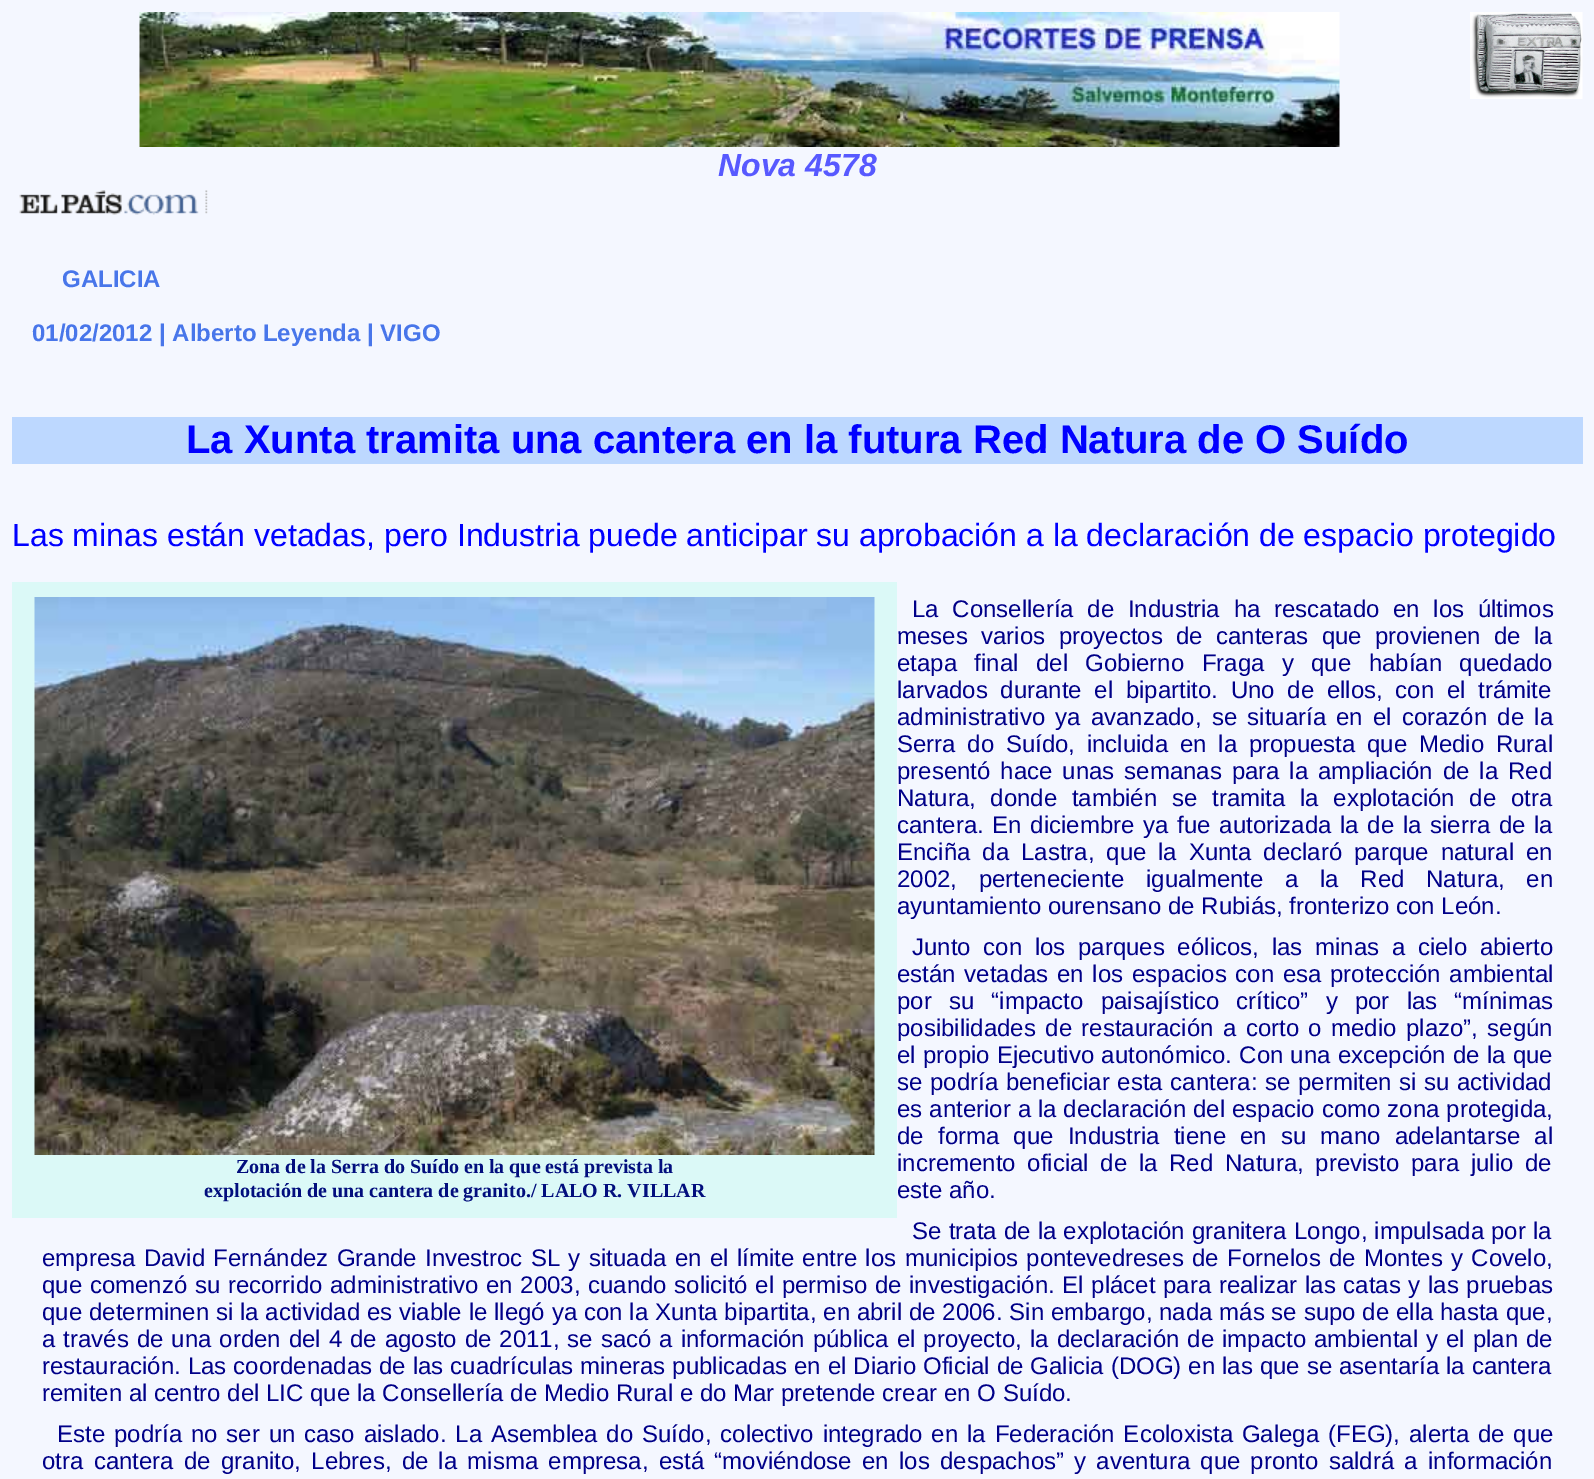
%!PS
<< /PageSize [1594 1479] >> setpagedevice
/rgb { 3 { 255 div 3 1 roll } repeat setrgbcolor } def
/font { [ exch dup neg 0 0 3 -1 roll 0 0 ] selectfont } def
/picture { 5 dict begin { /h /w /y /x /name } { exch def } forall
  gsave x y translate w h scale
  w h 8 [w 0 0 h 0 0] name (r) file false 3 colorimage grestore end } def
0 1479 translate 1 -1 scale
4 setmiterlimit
244 247 255 rgb
0 0 1594 1479 rectfill
(img/1.rgb) 1470 12 113 87 picture
(img/2.rgb) 139 12 1201 135 picture
(img/3.rgb) 19 190 189 25 picture
189 216 255 rgb
12 417 1571 47 rectfill
219 249 247 rgb
12 582 885 636 rectfill
(img/4.rgb) 34 597 841 558 picture
/LiberationSans-BoldItalic 32 font
87 89 255 rgb
718 176 moveto (Nova 4578) show
/LiberationSans-Bold 24 font
72 118 234 rgb
62 287 moveto (GALICIA) show
32 341 moveto (01/02/2012 | Alberto Leyenda | VIGO) show
/LiberationSans-Bold 40 font
0 0 255 rgb
186 453 moveto (La Xunta tramita una cantera en la futura Red Natura de O Suído) show
/LiberationSans-Regular 32 font
12 546 moveto (Las minas están vetadas, pero Industria puede anticipar su aprobación a la declaración de espacio protegido) show
/LiberationSans-Regular 24 font
0 0 136 rgb
912 617 moveto 7 0 32 (La Consellería de Industria ha rescatado en los últimos) widthshow
897 644 moveto 6.75 0 32 (meses varios proyectos de canteras que provienen de la) widthshow
897 671 moveto 10.75 0 32 (etapa final del Gobierno Fraga y que habían quedado) widthshow
897 698 moveto 6 0 32 (larvados durante el bipartito. Uno de ellos, con el trámite) widthshow
897 725 moveto 3.5 0 32 (administrativo ya avanzado, se situaría en el corazón de la) widthshow
897 752 moveto 5 0 32 (Serra do Suído, incluida en la propuesta que Medio Rural) widthshow
897 779 moveto 3.25 0 32 (presentó hace unas semanas para la ampliación de la Red) widthshow
897 806 moveto 8 0 32 (Natura, donde también se tramita la explotación de otra) widthshow
897 833 moveto 2 0 32 (cantera. En diciembre ya fue autorizada la de la sierra de la) widthshow
897 860 moveto 5.25 0 32 (Enciña da Lastra, que la Xunta declaró parque natural en) widthshow
897 887 moveto 15 0 32 (2002, perteneciente igualmente a la Red Natura, en) widthshow
897 914 moveto (ayuntamiento ourensano de Rubiás, fronterizo con León.) show
/LiberationSerif-Bold 20 font
2 14 125 rgb
236 1173 moveto (Zona de la Serra do Suído en la que está prevista la) show
204 1197 moveto (explotación de una cantera de granito./ LALO R. VILLAR) show
/LiberationSans-Regular 24 font
0 0 136 rgb
912 955 moveto 6 0 32 (Junto con los parques eólicos, las minas a cielo abierto) widthshow
897 982 moveto 2 0 32 (están vetadas en los espacios con esa protección ambiental) widthshow
897 1009 moveto 10.5 0 32 (por su “impacto paisajístico crítico” y por las “mínimas) widthshow
897 1036 moveto 2.75 0 32 (posibilidades de restauración a corto o medio plazo”, según) widthshow
897 1063 moveto 0.5 0 32 (el propio Ejecutivo autonómico. Con una excepción de la que) widthshow
897 1090 moveto 1 0 32 (se podría beneficiar esta cantera: se permiten si su actividad) widthshow
897 1117 moveto 0.25 0 32 (es anterior a la declaración del espacio como zona protegida,) widthshow
897 1144 moveto 7.5 0 32 (de forma que Industria tiene en su mano adelantarse al) widthshow
897 1171 moveto 5 0 32 (incremento oficial de la Red Natura, previsto para julio de) widthshow
897 1198 moveto (este año.) show
912 1239 moveto 0.5 0 32 (Se trata de la explotación granitera Longo, impulsada por la) widthshow
42 1266 moveto 1.7 0 32 (empresa David Fernández Grande Investroc SL y situada en el límite entre los municipios pontevedreses de Fornelos de Montes y Covelo,) widthshow
42 1293 moveto 1 0 32 (que comenzó su recorrido administrativo en 2003, cuando solicitó el permiso de investigación. El plácet para realizar las catas y las pruebas) widthshow
42 1320 moveto 0.15 0 32 (que determinen si la actividad es viable le llegó ya con la Xunta bipartita, en abril de 2006. Sin embargo, nada más se supo de ella hasta que,) widthshow
42 1347 moveto 1.3 0 32 (a través de una orden del 4 de agosto de 2011, se sacó a información pública el proyecto, la declaración de impacto ambiental y el plan de) widthshow
42 1374 moveto 0.3 0 32 (restauración. Las coordenadas de las cuadrículas mineras publicadas en el Diario Oficial de Galicia \(DOG\) en las que se asentaría la cantera) widthshow
42 1401 moveto (remiten al centro del LIC que la Consellería de Medio Rural e do Mar pretende crear en O Suído.) show
57 1442 moveto 2.2 0 32 (Este podría no ser un caso aislado. La Asemblea do Suído, colectivo integrado en la Federación Ecoloxista Galega \(FEG\), alerta de que) widthshow
42 1469 moveto 3.6 0 32 (otra cantera de granito, Lebres, de la misma empresa, está “moviéndose en los despachos” y aventura que pronto saldrá a información) widthshow
showpage
